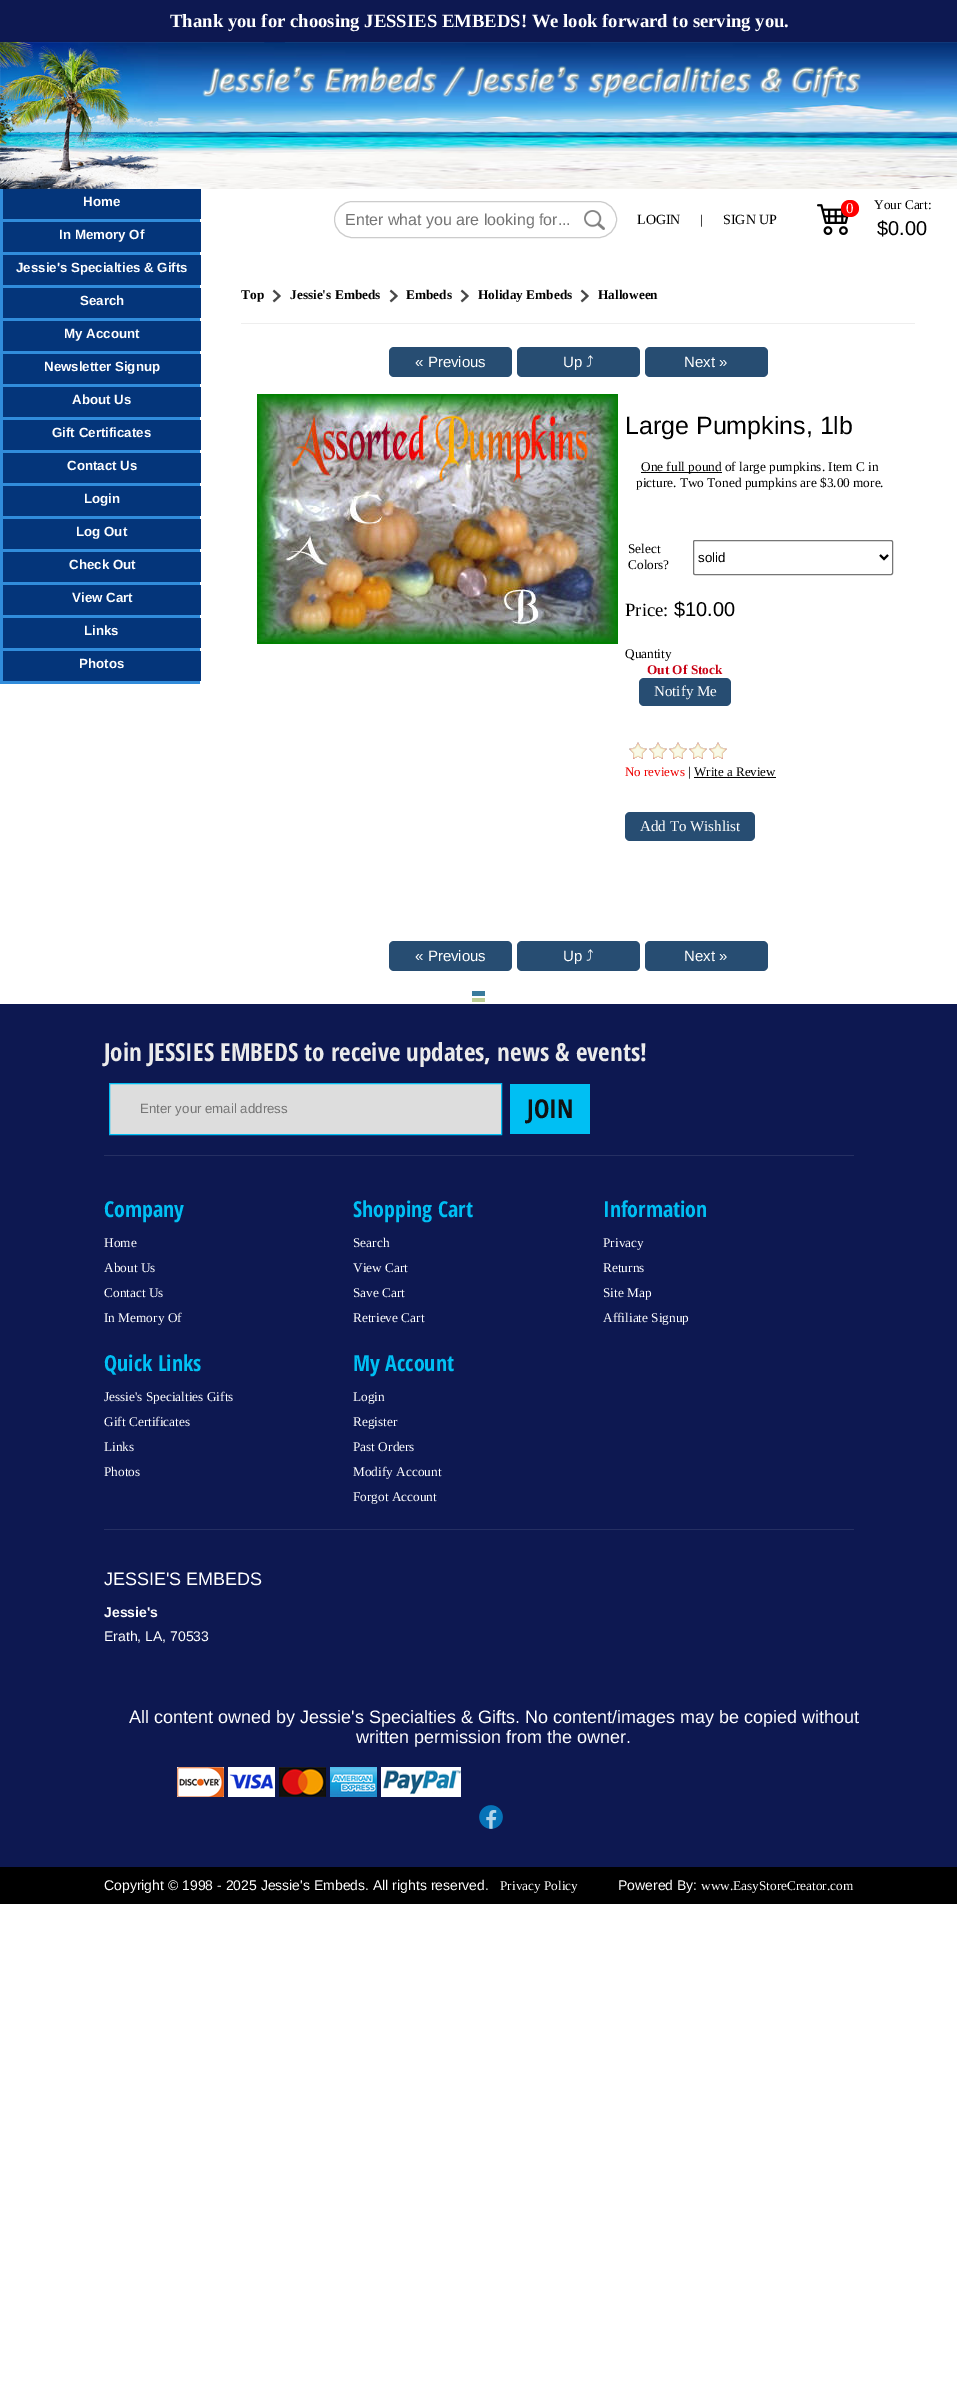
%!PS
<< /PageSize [957 2388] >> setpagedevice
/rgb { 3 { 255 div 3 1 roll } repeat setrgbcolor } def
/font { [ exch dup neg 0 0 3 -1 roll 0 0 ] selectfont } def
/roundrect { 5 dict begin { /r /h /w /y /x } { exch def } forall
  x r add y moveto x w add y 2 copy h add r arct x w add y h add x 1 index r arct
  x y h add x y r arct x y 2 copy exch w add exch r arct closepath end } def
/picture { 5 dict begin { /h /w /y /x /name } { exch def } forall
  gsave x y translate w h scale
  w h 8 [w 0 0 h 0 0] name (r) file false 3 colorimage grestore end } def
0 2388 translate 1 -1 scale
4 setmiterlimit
255 255 255 rgb
0 0 957 2388 rectfill
13 24 81 rgb
0 0 957 42 rectfill
(img/1.rgb) 0 42 957 147 picture
[
  [0 189 200 495 49 140 219]
  [3 189 198 30 4 53 122]
  [3 222 198 30 4 53 122]
  [3 255 198 30 4 53 122]
  [3 288 198 30 4 53 122]
  [3 321 198 30 4 53 122]
  [3 354 198 30 4 53 122]
  [3 387 198 30 4 53 122]
  [3 420 198 30 4 53 122]
  [3 453 198 30 4 53 122]
  [3 486 198 30 4 53 122]
  [3 519 198 30 4 53 122]
  [3 552 198 30 4 53 122]
  [3 585 198 30 4 53 122]
  [3 618 198 30 4 53 122]
  [3 651 198 30 4 53 122]
] { aload pop rgb rectfill } forall
204 204 204 rgb
334.5 201.5 282 36 18 roundrect stroke
(img/2.rgb) 584 210 21 20 picture
(img/3.rgb) 817 204 32 31 picture
255 0 0 rgb
841 200 18 17 8.5 roundrect fill
73 73 73 rgb
2 setlinewidth
273.5 290.5 moveto 279.5 296 lineto 273.5 301.5 lineto stroke
390.5 290.5 moveto 396.5 296 lineto 390.5 301.5 lineto stroke
461.5 290.5 moveto 467.5 296 lineto 461.5 301.5 lineto stroke
581.5 290.5 moveto 587.5 296 lineto 581.5 301.5 lineto stroke
238 238 238 rgb
241 323 674 1 rectfill
39 77 114 rgb
389 347 123 30 5 roundrect fill
517 347 123 30 5 roundrect fill
645 347 123 30 5 roundrect fill
(img/4.rgb) 257 394 361 250 picture
0 0 0 rgb
641 472 81 1 rectfill
118 118 118 rgb
1 setlinewidth
693.5 540.5 199 34 1.5 roundrect stroke
0 0 0 rgb
2 setlinewidth
880 555 moveto 884 559 lineto 888 555 lineto stroke
39 77 114 rgb
639 678 92 28 5 roundrect fill
(img/5.rgb) 629 742 98 17 picture
0 0 0 rgb
694 777 82 1 rectfill
39 77 114 rgb
625 812 130 29 5 roundrect fill
389 941 123 30 5 roundrect fill
517 941 123 30 5 roundrect fill
645 941 123 30 5 roundrect fill
(img/6.rgb) 472 991 13 11 picture
13 24 81 rgb
0 1004 957 863 rectfill
37 47 98 rgb
104 1155 750 1 rectfill
221 221 221 rgb
109.5 1083.5 moveto 501.5 1083.5 lineto 501.5 1134.5 lineto 109.5 1134.5 lineto closepath gsave fill grestore
0 191 243 rgb
1 setlinewidth
stroke
510 1084 80 50 rectfill
37 47 98 rgb
104 1529 750 1 rectfill
(img/7.rgb) 177 1767 47 30 picture
(img/8.rgb) 228 1767 47 30 picture
(img/9.rgb) 279 1767 47 30 picture
(img/10.rgb) 330 1767 47 30 picture
(img/11.rgb) 381 1767 80 30 picture
(img/12.rgb) 479 1805 24 24 picture
0 0 0 rgb
0 1867 957 37 rectfill
/LiberationSerif-Bold 18.7 font
255 255 255 rgb
170 27 moveto (Thank you for choosing JESSIES EMBEDS! We look forward to serving you.) show
/LiberationSans-Bold 13.3 font
[
  [(Home) 83 206]
  [(In Memory Of) 59 239]
  [(Jessie's Specialties & Gifts) 16 272]
  [(Search) 80 305]
  [(My Account) 64 338]
  [(Newsletter Signup) 44 371]
  [(About Us) 72 404]
  [(Gift Certificates) 52 437]
  [(Contact Us) 67 470]
  [(Login) 84 503]
  [(Log Out) 76 536]
  [(Check Out) 69 569]
  [(View Cart) 72 602]
  [(Links) 84 635]
  [(Photos) 79 668]
] { aload pop moveto show } forall
/LiberationSans-Regular 16 font
117 117 117 rgb
345 225 moveto (Enter what you are looking for...) show
/LiberationSerif-Regular 14 font
0 0 0 rgb
637 224 moveto (LOGIN) show
/LiberationSerif-Regular 13.3 font
700 224 moveto (|) show
/LiberationSerif-Regular 14 font
723 224 moveto (SIGN UP) show
/LiberationSerif-Regular 15 font
255 255 255 rgb
846 213 moveto (0) show
/LiberationSerif-Regular 13.3 font
0 0 0 rgb
874 209 moveto (Your Cart:) show
/LiberationSans-Regular 20 font
877 235 moveto ($0.00) show
/LiberationSerif-Bold 13.3 font
[
  [(Top) 241 299]
  [(Jessie's Embeds) 290 299]
  [(Embeds) 406 299]
  [(Holiday Embeds) 478 299]
  [(Halloween) 598 299]
] { aload pop moveto show } forall
/LiberationSans-Regular 15 font
255 255 255 rgb
415 367 moveto (« Previous) show
563 367 moveto (Up) show
/IPAGothic-Regular 15 font
586 367 moveto (⤴) show
/LiberationSans-Regular 15 font
684 367 moveto (Next ») show
/LiberationSans-Regular 25 font
0 0 0 rgb
625 434 moveto (Large Pumpkins, 1lb) show
/LiberationSerif-Regular 13.3 font
[
  [(One full pound of large pumpkins. Item C in) 641 471]
  [(picture. Two Toned pumpkins are $3.00 more.) 636 487]
  [(Select) 628 553]
  [(Colors?) 628 569]
] { aload pop moveto show } forall
/LiberationSans-Regular 13.3 font
698 562 moveto (solid) show
/LiberationSerif-Regular 18.7 font
625 616 moveto (Price:) show
/LiberationSans-Regular 20 font
674 616 moveto ($10.00) show
/LiberationSerif-Regular 13.3 font
625 658 moveto (Quantity) show
/LiberationSerif-Bold 13.3 font
200 0 19 rgb
647 674 moveto (Out Of Stock) show
/LiberationSerif-Regular 15 font
255 255 255 rgb
654 696 moveto (Notify Me) show
/LiberationSerif-Regular 13 font
238 0 0 rgb
625 776 moveto (No reviews) show
/LiberationSerif-Regular 13.3 font
0 0 0 rgb
688 776 moveto (|) show
/LiberationSerif-Regular 13 font
694 776 moveto (Write a Review) show
/LiberationSerif-Regular 15 font
255 255 255 rgb
640 831 moveto (Add To Wishlist) show
/LiberationSans-Regular 15 font
415 961 moveto (« Previous) show
563 961 moveto (Up) show
/IPAGothic-Regular 15 font
586 961 moveto (⤴) show
/LiberationSans-Regular 15 font
684 961 moveto (Next ») show
/OpenSansCondensed-Bold 25 font
235 235 235 rgb
104 1061 moveto (Join JESSIES EMBEDS to receive updates, news & events!) show
/LiberationSans-Regular 13.3 font
117 117 117 rgb
140 1113 moveto (Enter your email address) show
/OpenSansCondensed-Bold 26 font
17 17 17 rgb
527 1118 moveto (JOIN) show
/OpenSansCondensed-Bold 22 font
0 191 243 rgb
104 1217 moveto (Company) show
/LiberationSerif-Regular 13.3 font
255 255 255 rgb
[
  [(Home) 104 1247]
  [(About Us) 104 1272]
  [(Contact Us) 104 1297]
  [(In Memory Of) 104 1322]
] { aload pop moveto show } forall
/OpenSansCondensed-Bold 22 font
0 191 243 rgb
353 1217 moveto (Shopping Cart) show
/LiberationSerif-Regular 13.3 font
255 255 255 rgb
[
  [(Search) 353 1247]
  [(View Cart) 353 1272]
  [(Save Cart) 353 1297]
  [(Retrieve Cart) 353 1322]
] { aload pop moveto show } forall
/OpenSansCondensed-Bold 22 font
0 191 243 rgb
603 1217 moveto (Information) show
/LiberationSerif-Regular 13.3 font
255 255 255 rgb
[
  [(Privacy) 603 1247]
  [(Returns) 603 1272]
  [(Site Map) 603 1297]
  [(Affiliate Signup) 603 1322]
] { aload pop moveto show } forall
/OpenSansCondensed-Bold 22 font
0 191 243 rgb
104 1371 moveto (Quick Links) show
/LiberationSerif-Regular 13.3 font
255 255 255 rgb
[
  [(Jessie's Specialties Gifts) 104 1401]
  [(Gift Certificates) 104 1426]
  [(Links) 104 1451]
  [(Photos) 104 1476]
] { aload pop moveto show } forall
/OpenSansCondensed-Bold 22 font
0 191 243 rgb
353 1371 moveto (My Account) show
/LiberationSerif-Regular 13.3 font
255 255 255 rgb
[
  [(Login) 353 1401]
  [(Register) 353 1426]
  [(Past Orders) 353 1451]
  [(Modify Account) 353 1476]
  [(Forgot Account) 353 1501]
] { aload pop moveto show } forall
/LiberationSans-Regular 18 font
104 1585 moveto (JESSIE'S EMBEDS) show
/LiberationSans-Bold 14 font
104 1617 moveto (Jessie's) show
/LiberationSans-Regular 14 font
104 1641 moveto (Erath, LA, 70533) show
/LiberationSans-Regular 18 font
129 1723 moveto (All content owned by Jessie's Specialties & Gifts. No content/images may be copied without) show
356 1743 moveto (written permission from the owner.) show
/LiberationSans-Regular 14 font
104 1890 moveto (Copyright © 1998 - 2025 Jessie's Embeds. All rights reserved.) show
/LiberationSerif-Regular 13.3 font
500 1890 moveto (Privacy Policy) show
/LiberationSans-Regular 14 font
618 1890 moveto (Powered By:) show
/LiberationSerif-Regular 13.3 font
701 1890 moveto (www.EasyStoreCreator.com) show
showpage
